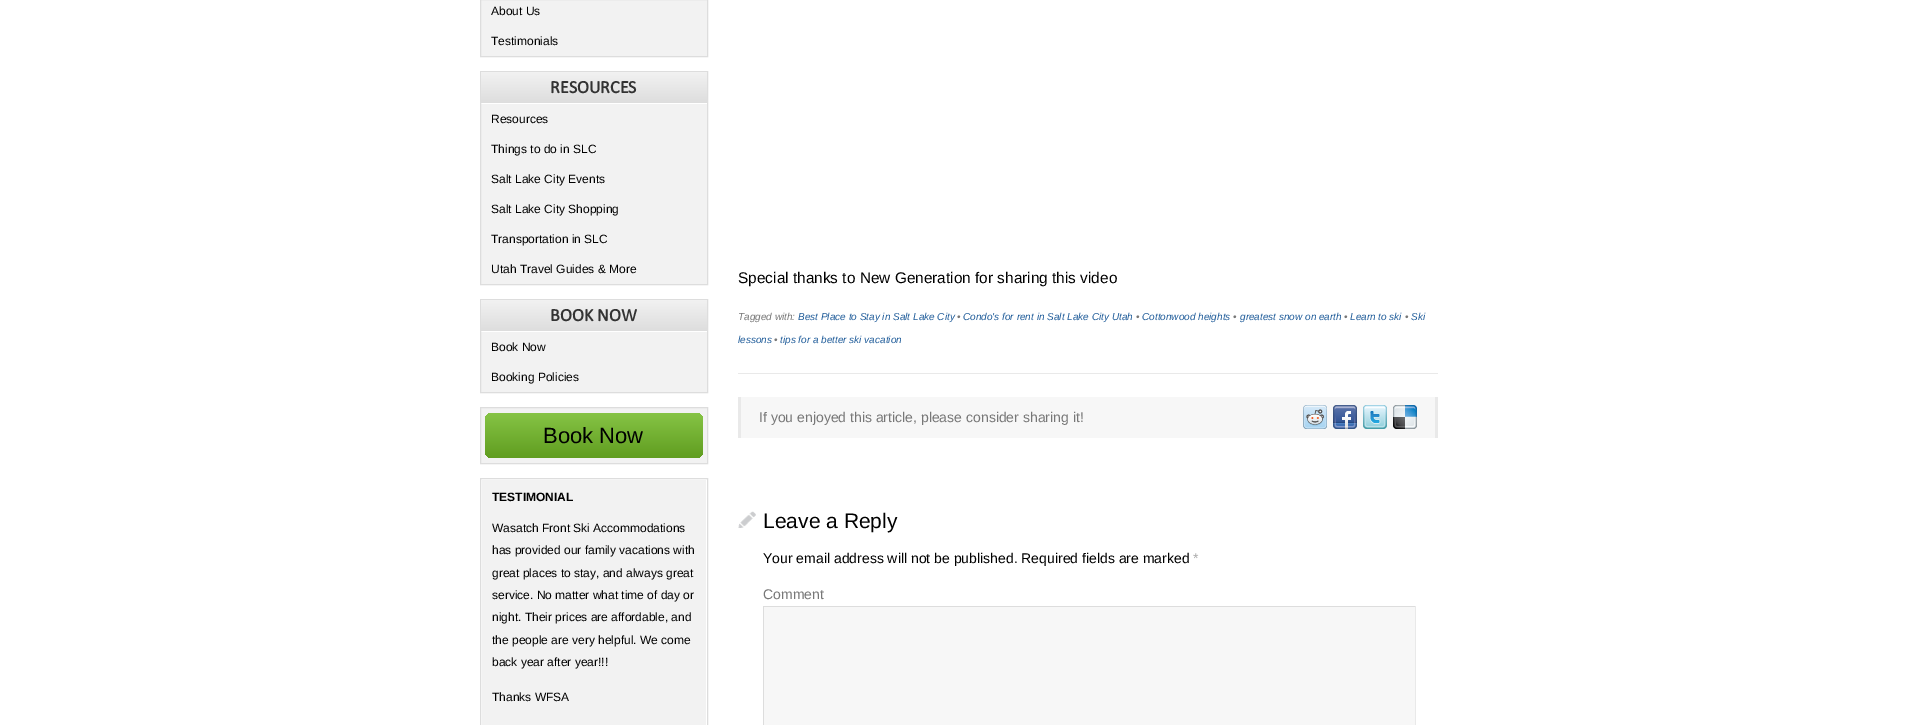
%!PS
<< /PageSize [1915 725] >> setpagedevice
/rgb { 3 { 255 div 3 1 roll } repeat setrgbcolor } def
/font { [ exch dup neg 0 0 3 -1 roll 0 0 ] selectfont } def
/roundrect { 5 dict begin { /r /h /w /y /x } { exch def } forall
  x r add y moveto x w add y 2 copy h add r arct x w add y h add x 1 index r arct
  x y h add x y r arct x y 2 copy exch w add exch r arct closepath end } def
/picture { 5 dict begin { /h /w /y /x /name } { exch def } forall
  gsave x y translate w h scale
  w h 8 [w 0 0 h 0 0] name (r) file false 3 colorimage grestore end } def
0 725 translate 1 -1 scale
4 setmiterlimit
255 255 255 rgb
0 0 1915 725 rectfill
242 242 242 rgb
480.5 -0.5 moveto 707.5 -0.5 lineto 707.5 56.5 lineto 480.5 56.5 lineto closepath gsave fill grestore
221 221 221 rgb
stroke
242 242 242 rgb
481 104 226 180 rectfill
221 221 221 rgb
480.5 71.5 227 213 rectstroke
gsave 481 72 moveto 707 72 lineto 707 103 lineto 481 103 lineto closepath clip newpath
<< /ShadingType 2 /ColorSpace /DeviceRGB /Coords [481 72 481 103] /Extend [true true] /Function << /FunctionType 2 /Domain [0 1] /C0 [0.949 0.949 0.949] /C1 [0.867 0.867 0.867] /N 1 >> >> shfill grestore
242 242 242 rgb
481 332 226 60 rectfill
221 221 221 rgb
480.5 299.5 227 93 rectstroke
gsave 481 300 moveto 707 300 lineto 707 331 lineto 481 331 lineto closepath clip newpath
<< /ShadingType 2 /ColorSpace /DeviceRGB /Coords [481 300 481 331] /Extend [true true] /Function << /FunctionType 2 /Domain [0 1] /C0 [0.949 0.949 0.949] /C1 [0.867 0.867 0.867] /N 1 >> >> shfill grestore
242 242 242 rgb
480.5 407.5 moveto 707.5 407.5 lineto 707.5 463.5 lineto 480.5 463.5 lineto closepath gsave fill grestore
221 221 221 rgb
stroke
gsave 485 413 218 45 7 roundrect clip newpath
<< /ShadingType 2 /ColorSpace /DeviceRGB /Coords [485 413 485 458] /Extend [true true] /Function << /FunctionType 2 /Domain [0 1] /C0 [0.525 0.769 0.271] /C1 [0.376 0.616 0.125] /N 1 >> >> shfill grestore
242 242 242 rgb
482 480 224 245 rectfill
221 221 221 rgb
480.5 478.5 227 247 rectstroke
[
  [738 373 700 1 233 233 233]
  [741 397 694 41 247 247 247]
  [1435 397 3 41 233 233 233]
  [738 397 3 41 233 233 233]
] { aload pop rgb rectfill } forall
(img/1.rgb) 1303 405 24 24 picture
(img/2.rgb) 1333 405 24 24 picture
(img/3.rgb) 1363 405 24 24 picture
(img/4.rgb) 1393 405 24 24 picture
(img/5.rgb) 738 511 18 17 picture
[
  [764 607 651 118 247 247 247]
  [763 606 653 1 221 221 221]
  [1415 606 1 119 233 233 233]
  [763 606 1 119 221 221 221]
] { aload pop rgb rectfill } forall
/LiberationSans-Regular 12 font
0 0 0 rgb
491 15 moveto (About Us) show
491 45 moveto (Testimonials) show
/Calibri-Bold 18 font
51 51 51 rgb
550 93 moveto (RESOURCES) show
/LiberationSans-Regular 12 font
0 0 0 rgb
[
  [(Resources) 491 123]
  [(Things to do in SLC) 491 153]
  [(Salt Lake City Events) 491 183]
  [(Salt Lake City Shopping) 491 213]
  [(Transportation in SLC) 491 243]
  [(Utah Travel Guides & More) 491 273]
] { aload pop moveto show } forall
/Calibri-Bold 18 font
51 51 51 rgb
550 321 moveto (BOOK NOW) show
/LiberationSans-Regular 12 font
0 0 0 rgb
491 351 moveto (Book Now) show
491 381 moveto (Booking Policies) show
/LiberationSans-Regular 22 font
543 443 moveto (Book Now) show
/LiberationSans-Bold 12 font
492 501 moveto (TESTIMONIAL) show
/LiberationSans-Regular 12 font
[
  [(Wasatch Front Ski Accommodations) 492 532]
  [(has provided our family vacations with) 492 554]
  [(great places to stay, and always great) 492 577]
  [(service. No matter what time of day or) 492 599]
  [(night. Their prices are affordable, and) 492 621]
  [(the people are very helpful. We come) 492 644]
  [(back year after year!!!) 492 666]
  [(Thanks WFSA) 492 701]
] { aload pop moveto show } forall
/LiberationSans-Regular 15.4 font
738 283 moveto (Special thanks to New Generation for sharing this video) show
/LiberationSans-Italic 10 font
119 119 119 rgb
738 320 moveto (Tagged with:) show
34 94 155 rgb
798 320 moveto (Best Place to Stay in Salt Lake City) show
119 119 119 rgb
957 320 moveto (•) show
34 94 155 rgb
963 320 moveto (Condo's for rent in Salt Lake City Utah) show
119 119 119 rgb
1136 320 moveto (•) show
34 94 155 rgb
1142 320 moveto (Cottonwood heights) show
119 119 119 rgb
1233 320 moveto (•) show
34 94 155 rgb
1240 320 moveto (greatest snow on earth) show
119 119 119 rgb
1344 320 moveto (•) show
34 94 155 rgb
1350 320 moveto (Learn to ski) show
119 119 119 rgb
1405 320 moveto (•) show
34 94 155 rgb
1411 320 moveto (Ski) show
738 343 moveto (lessons) show
119 119 119 rgb
774 343 moveto (•) show
34 94 155 rgb
780 343 moveto (tips for a better ski vacation) show
/LiberationSans-Regular 14 font
119 119 119 rgb
759 422 moveto (If you enjoyed this article, please consider sharing it!) show
/LiberationSans-Regular 21 font
0 0 0 rgb
763 528 moveto (Leave a Reply) show
/LiberationSans-Regular 14 font
763 563 moveto (Your email address will not be published. Required fields are marked) show
175 175 175 rgb
1193 563 moveto (*) show
119 119 119 rgb
763 599 moveto (Comment) show
showpage
